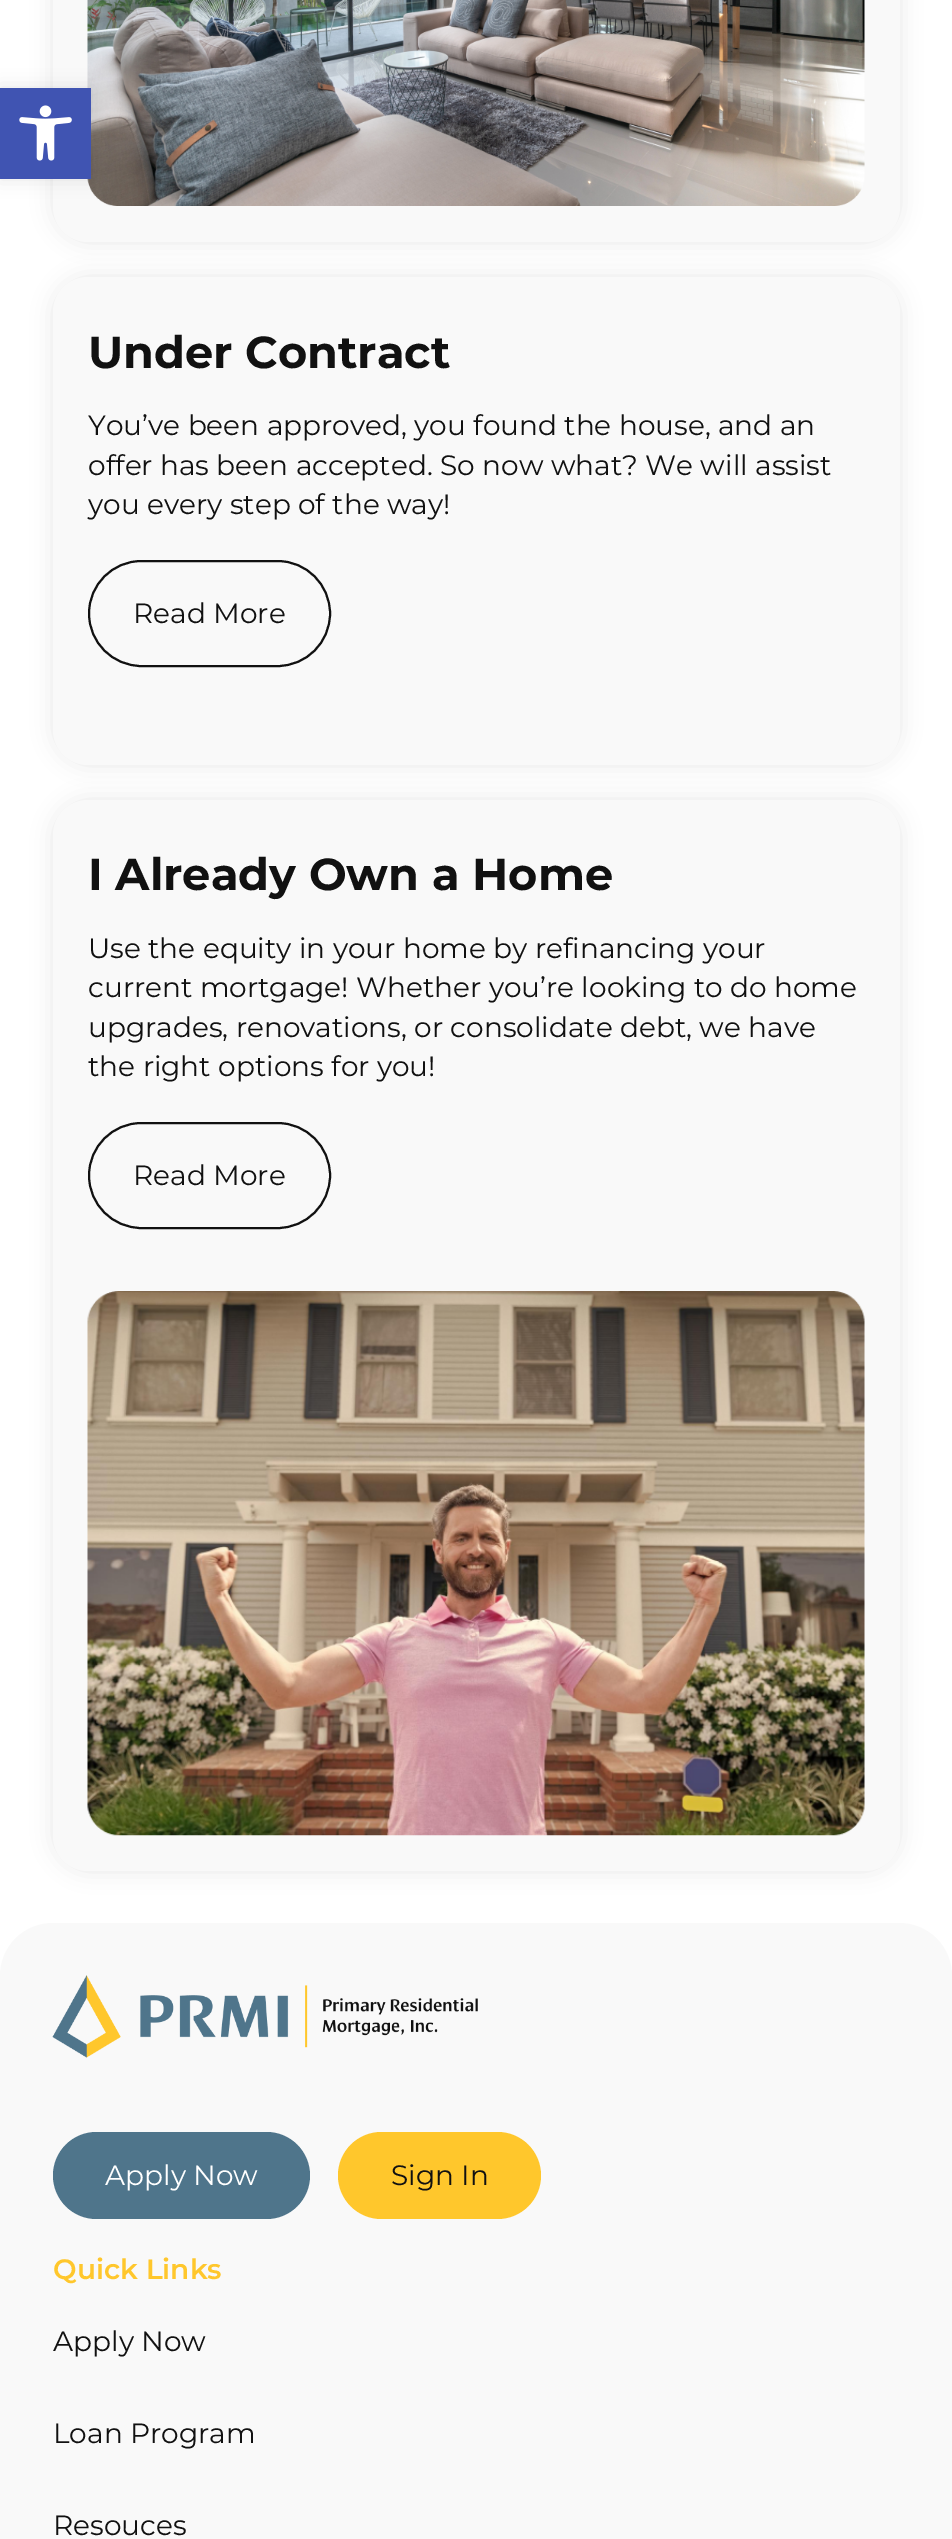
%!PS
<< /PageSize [952 2539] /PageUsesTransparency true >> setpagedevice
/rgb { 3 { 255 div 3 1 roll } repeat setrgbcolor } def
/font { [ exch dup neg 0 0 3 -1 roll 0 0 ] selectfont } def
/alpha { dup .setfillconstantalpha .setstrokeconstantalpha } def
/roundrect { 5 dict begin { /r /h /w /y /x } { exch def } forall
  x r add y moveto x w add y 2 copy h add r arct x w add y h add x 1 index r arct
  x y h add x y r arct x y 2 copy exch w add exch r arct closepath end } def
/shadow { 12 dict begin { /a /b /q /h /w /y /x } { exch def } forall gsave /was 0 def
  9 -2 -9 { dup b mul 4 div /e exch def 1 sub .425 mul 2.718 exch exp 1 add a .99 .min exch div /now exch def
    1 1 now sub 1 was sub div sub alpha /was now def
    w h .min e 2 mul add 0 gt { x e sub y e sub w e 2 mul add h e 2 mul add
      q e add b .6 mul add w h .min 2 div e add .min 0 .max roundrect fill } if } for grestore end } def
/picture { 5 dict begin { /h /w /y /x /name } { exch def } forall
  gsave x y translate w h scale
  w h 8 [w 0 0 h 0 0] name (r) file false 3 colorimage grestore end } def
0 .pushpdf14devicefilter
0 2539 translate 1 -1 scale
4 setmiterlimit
255 255 255 rgb
0 0 952 2539 rectfill
0 0 0 rgb
53 -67 847 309 35 10.5 0.09 shadow
249 249 249 rgb
53 -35 847 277 35 roundrect fill
(img/2.rgb) 87 0 778 206 picture
0 0 0 rgb
0 88 91 91 0 9 0.1 shadow
64 84 178 rgb
0 88 91 91 rectfill
(img/1.rgb) 19 105 53 56 picture
0 0 0 rgb
53 277 847 488 35 10.5 0.09 shadow
249 249 249 rgb
53 277 847 488 35 roundrect fill
17 17 17 rgb
2 setlinewidth
89 561 241 105 52.5 roundrect stroke
0 0 0 rgb
53 800 847 1071 35 10.5 0.09 shadow
249 249 249 rgb
53 800 847 1071 35 roundrect fill
17 17 17 rgb
89 1123 241 105 52.5 roundrect stroke
(img/3.rgb) 87 1291 778 545 picture
249 249 249 rgb
53 1923 moveto 899 1923 lineto 928.5 1923 952 1946.5 952 1976 curveto 952 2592 lineto 0 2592 lineto 0 1976 lineto 0 1946.5 23.5 1923 53 1923 curveto closepath fill
(img/4.rgb) 52 1975 426 83 picture
79 117 139 rgb
53 2132 257 87 43.5 roundrect fill
255 199 44 rgb
338 2132 203 87 43.5 roundrect fill
/Montserrat-Bold 44.75 font
17 17 17 rgb
88 368 moveto (Under Contract) show
/Montserrat-Regular 28 font
[
  [(You’ve been approved, you found the house, and an) 88 435]
  [(offer has been accepted. So now what? We will assist) 88 475]
  [(you every step of the way!) 88 514]
  [(Read More) 133 623]
] { aload pop moveto show } forall
/Montserrat-Bold 44.75 font
88 890 moveto (I Already Own a Home) show
/Montserrat-Regular 28 font
[
  [(Use the equity in your home by refinancing your) 88 958]
  [(current mortgage! Whether you’re looking to do home) 88 997]
  [(upgrades, renovations, or consolidate debt, we have) 88 1037]
  [(the right options for you!) 88 1076]
  [(Read More) 133 1185]
] { aload pop moveto show } forall
255 255 255 rgb
105 2185 moveto (Apply Now) show
17 17 17 rgb
391 2185 moveto (Sign In) show
/Montserrat-SemiBold 28 font
255 199 44 rgb
53 2279 moveto (Quick Links) show
/Montserrat-Regular 28 font
17 17 17 rgb
[
  [(Apply Now) 53 2351]
  [(Loan Program) 53 2443]
  [(Resouces) 53 2535]
] { aload pop moveto show } forall
.poppdf14devicefilter showpage
